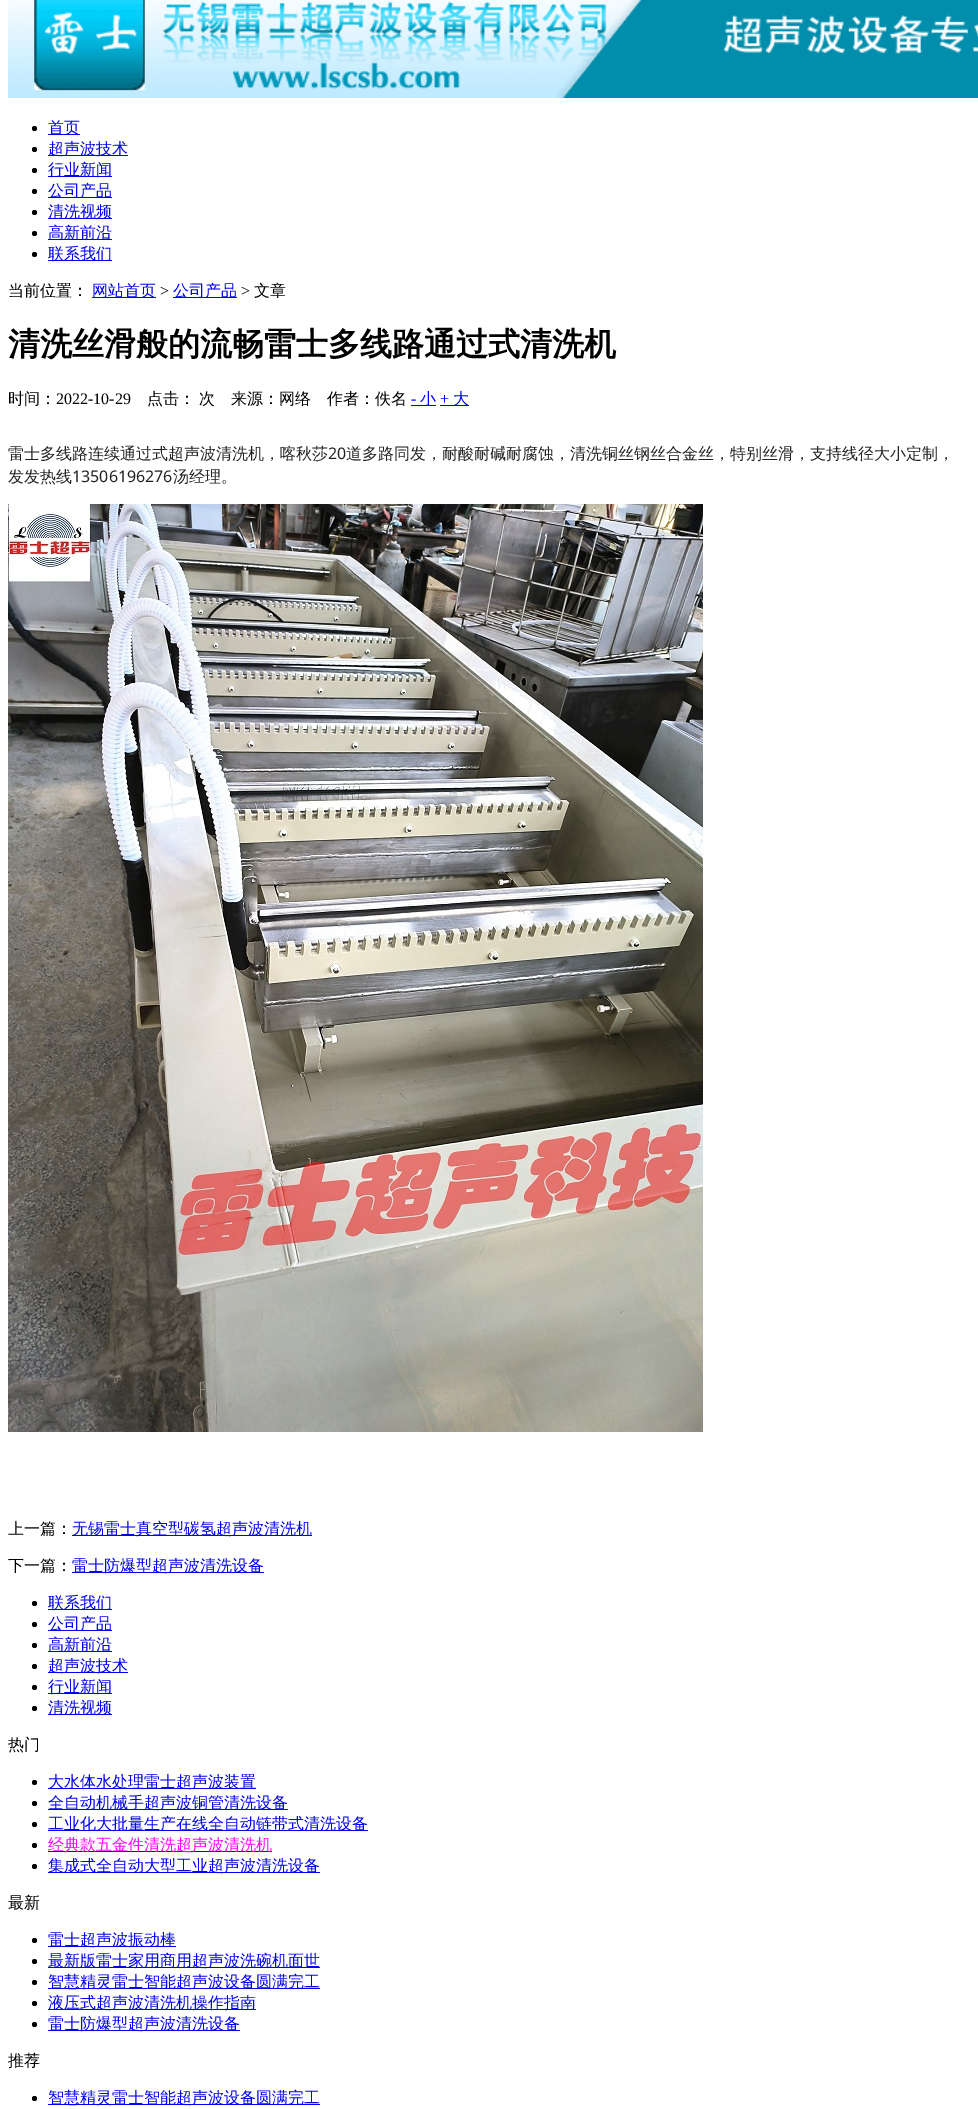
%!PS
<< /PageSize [978 2109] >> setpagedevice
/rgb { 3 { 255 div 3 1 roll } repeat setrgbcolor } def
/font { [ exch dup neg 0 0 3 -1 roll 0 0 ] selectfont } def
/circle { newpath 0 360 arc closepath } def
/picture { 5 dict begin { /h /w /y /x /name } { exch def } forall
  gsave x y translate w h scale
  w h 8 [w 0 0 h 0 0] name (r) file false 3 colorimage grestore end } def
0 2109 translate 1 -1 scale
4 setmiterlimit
255 255 255 rgb
0 0 978 2109 rectfill
(img/1.rgb) 8 0 970 98 picture
0 0 0 rgb
34.5 128.5 2.5 circle fill
0 0 238 rgb
48 134 32 1 rectfill
0 0 0 rgb
34.5 149.5 2.5 circle fill
0 0 238 rgb
48 155 80 1 rectfill
0 0 0 rgb
34.5 170.5 2.5 circle fill
0 0 238 rgb
48 176 64 1 rectfill
0 0 0 rgb
34.5 191.5 2.5 circle fill
0 0 238 rgb
48 197 64 1 rectfill
0 0 0 rgb
34.5 212.5 2.5 circle fill
0 0 238 rgb
48 218 64 1 rectfill
0 0 0 rgb
34.5 233.5 2.5 circle fill
0 0 238 rgb
48 239 64 1 rectfill
0 0 0 rgb
34.5 254.5 2.5 circle fill
[
  [48 260 64 1 0 0 238]
  [92 297 64 1 0 0 238]
  [173 297 64 1 0 0 238]
  [411 405 25 1 0 0 238]
  [440 405 29 1 0 0 238]
] { aload pop rgb rectfill } forall
(img/2.rgb) 8 504 695 928 picture
72 1535 240 1 rectfill
72 1572 192 1 rectfill
0 0 0 rgb
34.5 1603.5 2.5 circle fill
0 0 238 rgb
48 1609 64 1 rectfill
0 0 0 rgb
34.5 1624.5 2.5 circle fill
0 0 238 rgb
48 1630 64 1 rectfill
0 0 0 rgb
34.5 1645.5 2.5 circle fill
0 0 238 rgb
48 1651 64 1 rectfill
0 0 0 rgb
34.5 1666.5 2.5 circle fill
0 0 238 rgb
48 1672 80 1 rectfill
0 0 0 rgb
34.5 1687.5 2.5 circle fill
0 0 238 rgb
48 1693 64 1 rectfill
0 0 0 rgb
34.5 1708.5 2.5 circle fill
0 0 238 rgb
48 1714 64 1 rectfill
0 0 0 rgb
34.5 1782.5 2.5 circle fill
0 0 238 rgb
48 1788 208 1 rectfill
0 0 0 rgb
34.5 1803.5 2.5 circle fill
0 0 238 rgb
48 1809 240 1 rectfill
0 0 0 rgb
34.5 1824.5 2.5 circle fill
0 0 238 rgb
48 1830 320 1 rectfill
0 0 0 rgb
34.5 1845.5 2.5 circle fill
0 0 238 rgb
48 1851 224 1 rectfill
0 0 0 rgb
34.5 1866.5 2.5 circle fill
0 0 238 rgb
48 1872 272 1 rectfill
0 0 0 rgb
34.5 1940.5 2.5 circle fill
0 0 238 rgb
48 1946 128 1 rectfill
0 0 0 rgb
34.5 1961.5 2.5 circle fill
0 0 238 rgb
48 1967 272 1 rectfill
0 0 0 rgb
34.5 1982.5 2.5 circle fill
0 0 238 rgb
48 1988 272 1 rectfill
0 0 0 rgb
34.5 2003.5 2.5 circle fill
0 0 238 rgb
48 2009 208 1 rectfill
0 0 0 rgb
34.5 2024.5 2.5 circle fill
0 0 238 rgb
48 2030 192 1 rectfill
0 0 0 rgb
34.5 2098.5 2.5 circle fill
0 0 238 rgb
48 2104 272 1 rectfill
/WenQuanYiZenHei-Medium 16 font
[
  [(首页) 48 133]
  [(超声波技术) 48 154]
  [(行业新闻) 48 175]
  [(公司产品) 48 196]
  [(清洗视频) 48 217]
  [(高新前沿) 48 238]
  [(联系我们) 48 259]
] { aload pop moveto show } forall
0 0 0 rgb
8 296 moveto (当前位置：) show
0 0 238 rgb
92 296 moveto (网站首页) show
/LiberationSerif-Regular 16 font
0 0 0 rgb
160 296 moveto (>) show
/WenQuanYiZenHei-Medium 16 font
0 0 238 rgb
173 296 moveto (公司产品) show
/LiberationSerif-Regular 16 font
0 0 0 rgb
241 296 moveto (>) show
/WenQuanYiZenHei-Medium 16 font
254 296 moveto (文章) show
/WenQuanYiZenHei-Bold 32 font
8 355 moveto (清洗丝滑般的流畅雷士多线路通过式清洗机) show
/WenQuanYiZenHei-Medium 16 font
8 404 moveto (时间：) show
/LiberationSerif-Regular 16 font
56 404 moveto (2022-10-29) show
/WenQuanYiZenHei-Medium 16 font
[
  [(点击：) 147 404]
  [(次) 199 404]
  [(来源：网络) 231 404]
  [(作者：佚名) 327 404]
] { aload pop moveto show } forall
/LiberationSerif-Regular 16 font
0 0 238 rgb
411 404 moveto (-) show
/WenQuanYiZenHei-Medium 16 font
420 404 moveto (小) show
/LiberationSerif-Regular 16 font
440 404 moveto (+) show
/WenQuanYiZenHei-Medium 16 font
453 404 moveto (大) show
34 34 34 rgb
8 459 moveto (雷士多线路连续通过式超声波清洗机，喀秋莎) show
/NotoSans-Regular 16 font
328 459 moveto (20) show
/WenQuanYiZenHei-Medium 16 font
346 459 moveto (道多路同发，耐酸耐碱耐腐蚀，清洗铜丝钢丝合金丝，特别丝滑，支持线径大小定制，) show
8 482 moveto (发发热线) show
/NotoSans-Regular 16 font
72 482 moveto (13506196276) show
/WenQuanYiZenHei-Medium 16 font
173 482 moveto (汤经理。) show
0 0 0 rgb
8 1534 moveto (上一篇：) show
0 0 238 rgb
72 1534 moveto (无锡雷士真空型碳氢超声波清洗机) show
0 0 0 rgb
8 1571 moveto (下一篇：) show
0 0 238 rgb
[
  [(雷士防爆型超声波清洗设备) 72 1571]
  [(联系我们) 48 1608]
  [(公司产品) 48 1629]
  [(高新前沿) 48 1650]
  [(超声波技术) 48 1671]
  [(行业新闻) 48 1692]
  [(清洗视频) 48 1713]
] { aload pop moveto show } forall
0 0 0 rgb
8 1750 moveto (热门) show
0 0 238 rgb
[
  [(大水体水处理雷士超声波装置) 48 1787]
  [(全自动机械手超声波铜管清洗设备) 48 1808]
  [(工业化大批量生产在线全自动链带式清洗设备) 48 1829]
] { aload pop moveto show } forall
255 0 255 rgb
48 1850 moveto (经典款五金件清洗超声波清洗机) show
0 0 238 rgb
48 1871 moveto (集成式全自动大型工业超声波清洗设备) show
0 0 0 rgb
8 1908 moveto (最新) show
0 0 238 rgb
[
  [(雷士超声波振动棒) 48 1945]
  [(最新版雷士家用商用超声波洗碗机面世) 48 1966]
  [(智慧精灵雷士智能超声波设备圆满完工) 48 1987]
  [(液压式超声波清洗机操作指南) 48 2008]
  [(雷士防爆型超声波清洗设备) 48 2029]
] { aload pop moveto show } forall
0 0 0 rgb
8 2066 moveto (推荐) show
0 0 238 rgb
48 2103 moveto (智慧精灵雷士智能超声波设备圆满完工) show
showpage
